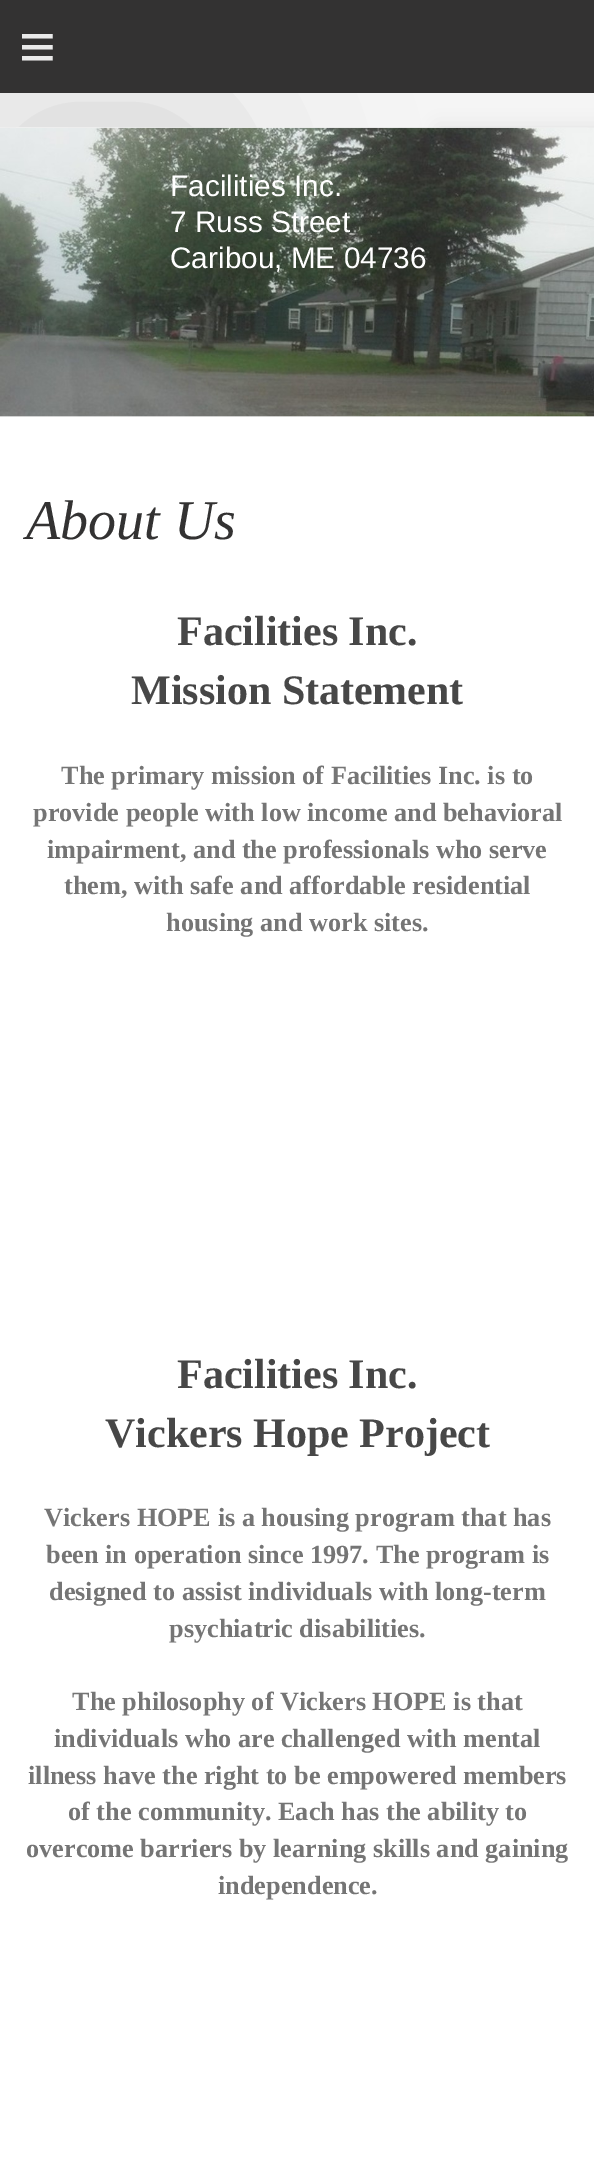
%!PS
<< /PageSize [594 2179] /PageUsesTransparency true >> setpagedevice
/rgb { 3 { 255 div 3 1 roll } repeat setrgbcolor } def
/font { [ exch dup neg 0 0 3 -1 roll 0 0 ] selectfont } def
/alpha { dup .setfillconstantalpha .setstrokeconstantalpha } def
/roundrect { 5 dict begin { /r /h /w /y /x } { exch def } forall
  x r add y moveto x w add y 2 copy h add r arct x w add y h add x 1 index r arct
  x y h add x y r arct x y 2 copy exch w add exch r arct closepath end } def
/shadow { 12 dict begin { /a /b /q /h /w /y /x } { exch def } forall gsave /was 0 def
  9 -2 -9 { dup b mul 4 div /e exch def 1 sub .425 mul 2.718 exch exp 1 add a .99 .min exch div /now exch def
    1 1 now sub 1 was sub div sub alpha /was now def
    w h .min e 2 mul add 0 gt { x e sub y e sub w e 2 mul add h e 2 mul add
      q e add b .6 mul add w h .min 2 div e add .min 0 .max roundrect fill } if } for grestore end } def
/picture { 5 dict begin { /h /w /y /x /name } { exch def } forall
  gsave x y translate w h scale
  w h 8 [w 0 0 h 0 0] name (r) file false 3 colorimage grestore end } def
0 .pushpdf14devicefilter
0 2179 translate 1 -1 scale
4 setmiterlimit
245 245 245 rgb
0 0 594 2179 rectfill
0 0 0 rgb
18 128 175 1050 0 105 0.15 shadow
51 50 50 rgb
0 0 594 93 rectfill
0 0 0 rgb
438 128 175 1050 0 9 0.08 shadow
238 238 238 rgb
0 416 594 1 rectfill
(img/1.rgb) 0 127 594 290 picture
255 255 255 rgb
0 417 594 1762 rectfill
/LiberationSans-Regular 63 font
234 234 234 rgb
19 68 moveto 18 0 (≡) ashow
/LiberationSans-Regular 29.75 font
255 255 255 rgb
[
  [(Facilities Inc.) 170 196]
  [(7 Russ Street) 170 232]
  [(Caribou, ME 04736) 170 268]
] { aload pop moveto show } forall
/LiberationSerif-Italic 56 font
51 50 50 rgb
26 539 moveto (About Us) show
/LiberationSerif-Bold 42 font
71 71 71 rgb
177 645 moveto (Facilities Inc.) show
131 704 moveto (Mission Statement) show
/LiberationSerif-Bold 26.25 font
117 117 117 rgb
[
  [(The primary mission of Facilities Inc. is to) 61 784]
  [(provide people with low income and behavioral) 33 821]
  [(impairment, and the professionals who serve) 47 858]
  [(them, with safe and affordable residential) 64 894]
  [(housing and work sites.) 166 931]
] { aload pop moveto show } forall
/LiberationSerif-Bold 42 font
71 71 71 rgb
177 1388 moveto (Facilities Inc.) show
105 1447 moveto (Vickers Hope Project) show
/LiberationSerif-Bold 26.25 font
117 117 117 rgb
[
  [(Vickers HOPE is a housing program that has) 44 1526]
  [(been in operation since 1997. The program is) 46 1563]
  [(designed to assist individuals with long-term) 49 1600]
  [(psychiatric disabilities.) 169 1637]
  [(The philosophy of Vickers HOPE is that) 72 1710]
  [(individuals who are challenged with mental) 54 1747]
  [(illness have the right to be empowered members) 28 1784]
  [(of the community. Each has the ability to) 68 1820]
  [(overcome barriers by learning skills and gaining) 26 1857]
  [(independence.) 218 1894]
] { aload pop moveto show } forall
.poppdf14devicefilter showpage
